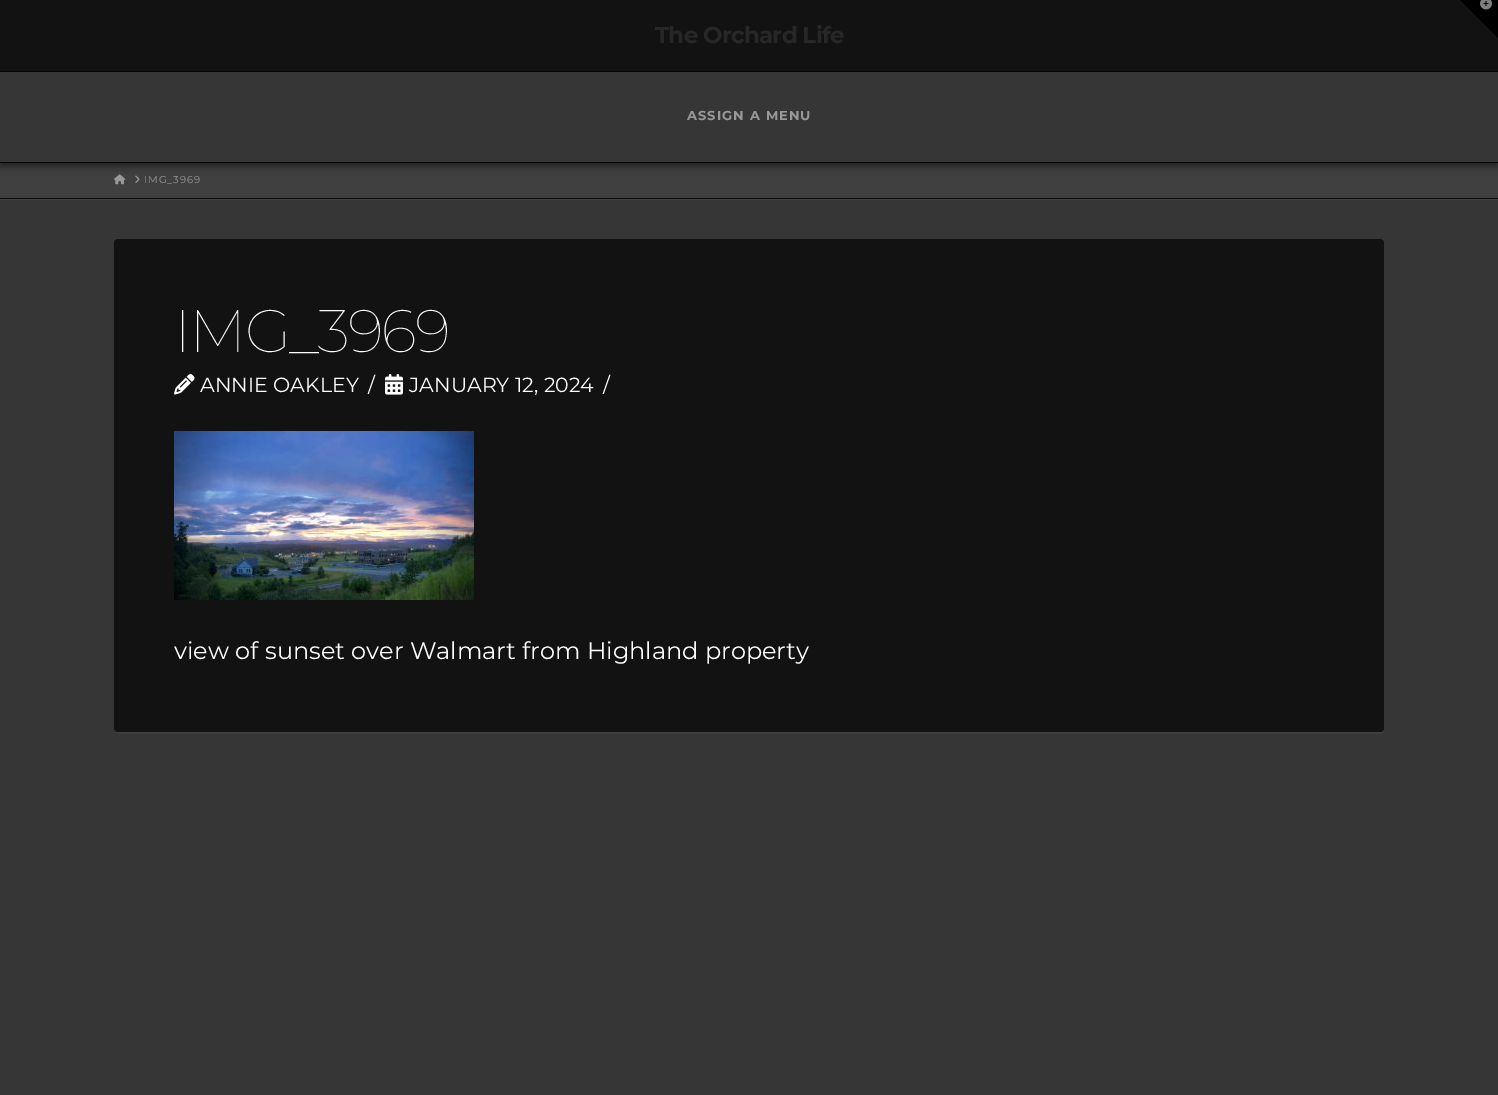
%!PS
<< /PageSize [1498 1095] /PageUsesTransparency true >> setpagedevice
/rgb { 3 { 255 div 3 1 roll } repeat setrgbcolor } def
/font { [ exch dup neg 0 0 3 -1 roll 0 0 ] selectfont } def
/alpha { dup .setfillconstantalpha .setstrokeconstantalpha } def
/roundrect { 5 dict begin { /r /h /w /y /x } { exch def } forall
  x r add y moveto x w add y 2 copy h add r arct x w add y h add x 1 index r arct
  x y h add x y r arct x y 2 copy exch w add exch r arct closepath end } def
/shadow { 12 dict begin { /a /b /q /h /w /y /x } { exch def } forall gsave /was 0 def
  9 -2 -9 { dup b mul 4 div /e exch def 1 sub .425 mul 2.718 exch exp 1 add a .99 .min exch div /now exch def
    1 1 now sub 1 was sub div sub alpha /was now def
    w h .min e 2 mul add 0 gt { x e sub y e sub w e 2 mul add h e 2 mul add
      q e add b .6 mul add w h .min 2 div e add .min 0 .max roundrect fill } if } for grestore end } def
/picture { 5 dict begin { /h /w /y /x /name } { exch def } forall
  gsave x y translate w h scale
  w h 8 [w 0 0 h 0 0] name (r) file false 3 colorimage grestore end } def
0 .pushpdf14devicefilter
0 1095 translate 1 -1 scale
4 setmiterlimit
54 54 54 rgb
0 0 1498 1095 rectfill
18 18 18 rgb
0 0 1498 71 rectfill
0 0 0 rgb
1460 0 moveto 1498 0 lineto 1479 19 lineto closepath fill
1498 0 moveto 1498 38 lineto 1479 19 lineto closepath fill
(img/1.rgb) 1480 0 12 10 picture
5 5 5 rgb
0 71 1498 1 rectfill
64 64 64 rgb
0 163 1498 35 rectfill
(img/2.rgb) 114 174 12 11 picture
(img/3.rgb) 135 175 5 8 picture
gsave
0 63 moveto 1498 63 lineto 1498 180 lineto 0 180 lineto closepath 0 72 moveto 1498 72 lineto 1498 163 lineto 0 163 lineto closepath eoclip newpath
0 0 0 rgb
0 76 1498 91 0 4 0.47 shadow
grestore
[
  [0 162 1498 1 0 0 0]
  [0 199 1498 1 67 67 67]
  [0 198 1498 1 11 11 11]
] { aload pop rgb rectfill } forall
255 255 255 rgb
116 244 1266 489 2 1 0.07 shadow
18 18 18 rgb
114 239 1270 493 4 roundrect fill
(img/4.rgb) 174 374 21 21 picture
(img/5.rgb) 385 374 18 21 picture
(img/6.rgb) 174 431 300 169 picture
/Montserrat-Bold 23 font
39 39 39 rgb
655 43 moveto -0.75 0 (The Orchard Life) ashow
/Montserrat-Bold 13 font
153 153 153 rgb
687 120 moveto 1.1 0 (ASSIGN A MENU) ashow
/Montserrat-Regular 10 font
144 183 moveto 1 0 (IMG_3969) ashow
/Montserrat-Thin 60 font
255 255 255 rgb
174 352 moveto -2 0 (IMG_3969) ashow
/Montserrat-Regular 20.5 font
[
  [(ANNIE OAKLEY) 200 392]
  [(/) 368 392]
  [(JANUARY 12, 2024) 409 392]
  [(/) 603 392]
] { aload pop moveto show } forall
/Montserrat-Regular 24 font
174 659 moveto (view of sunset over Walmart from Highland property) show
.poppdf14devicefilter showpage
